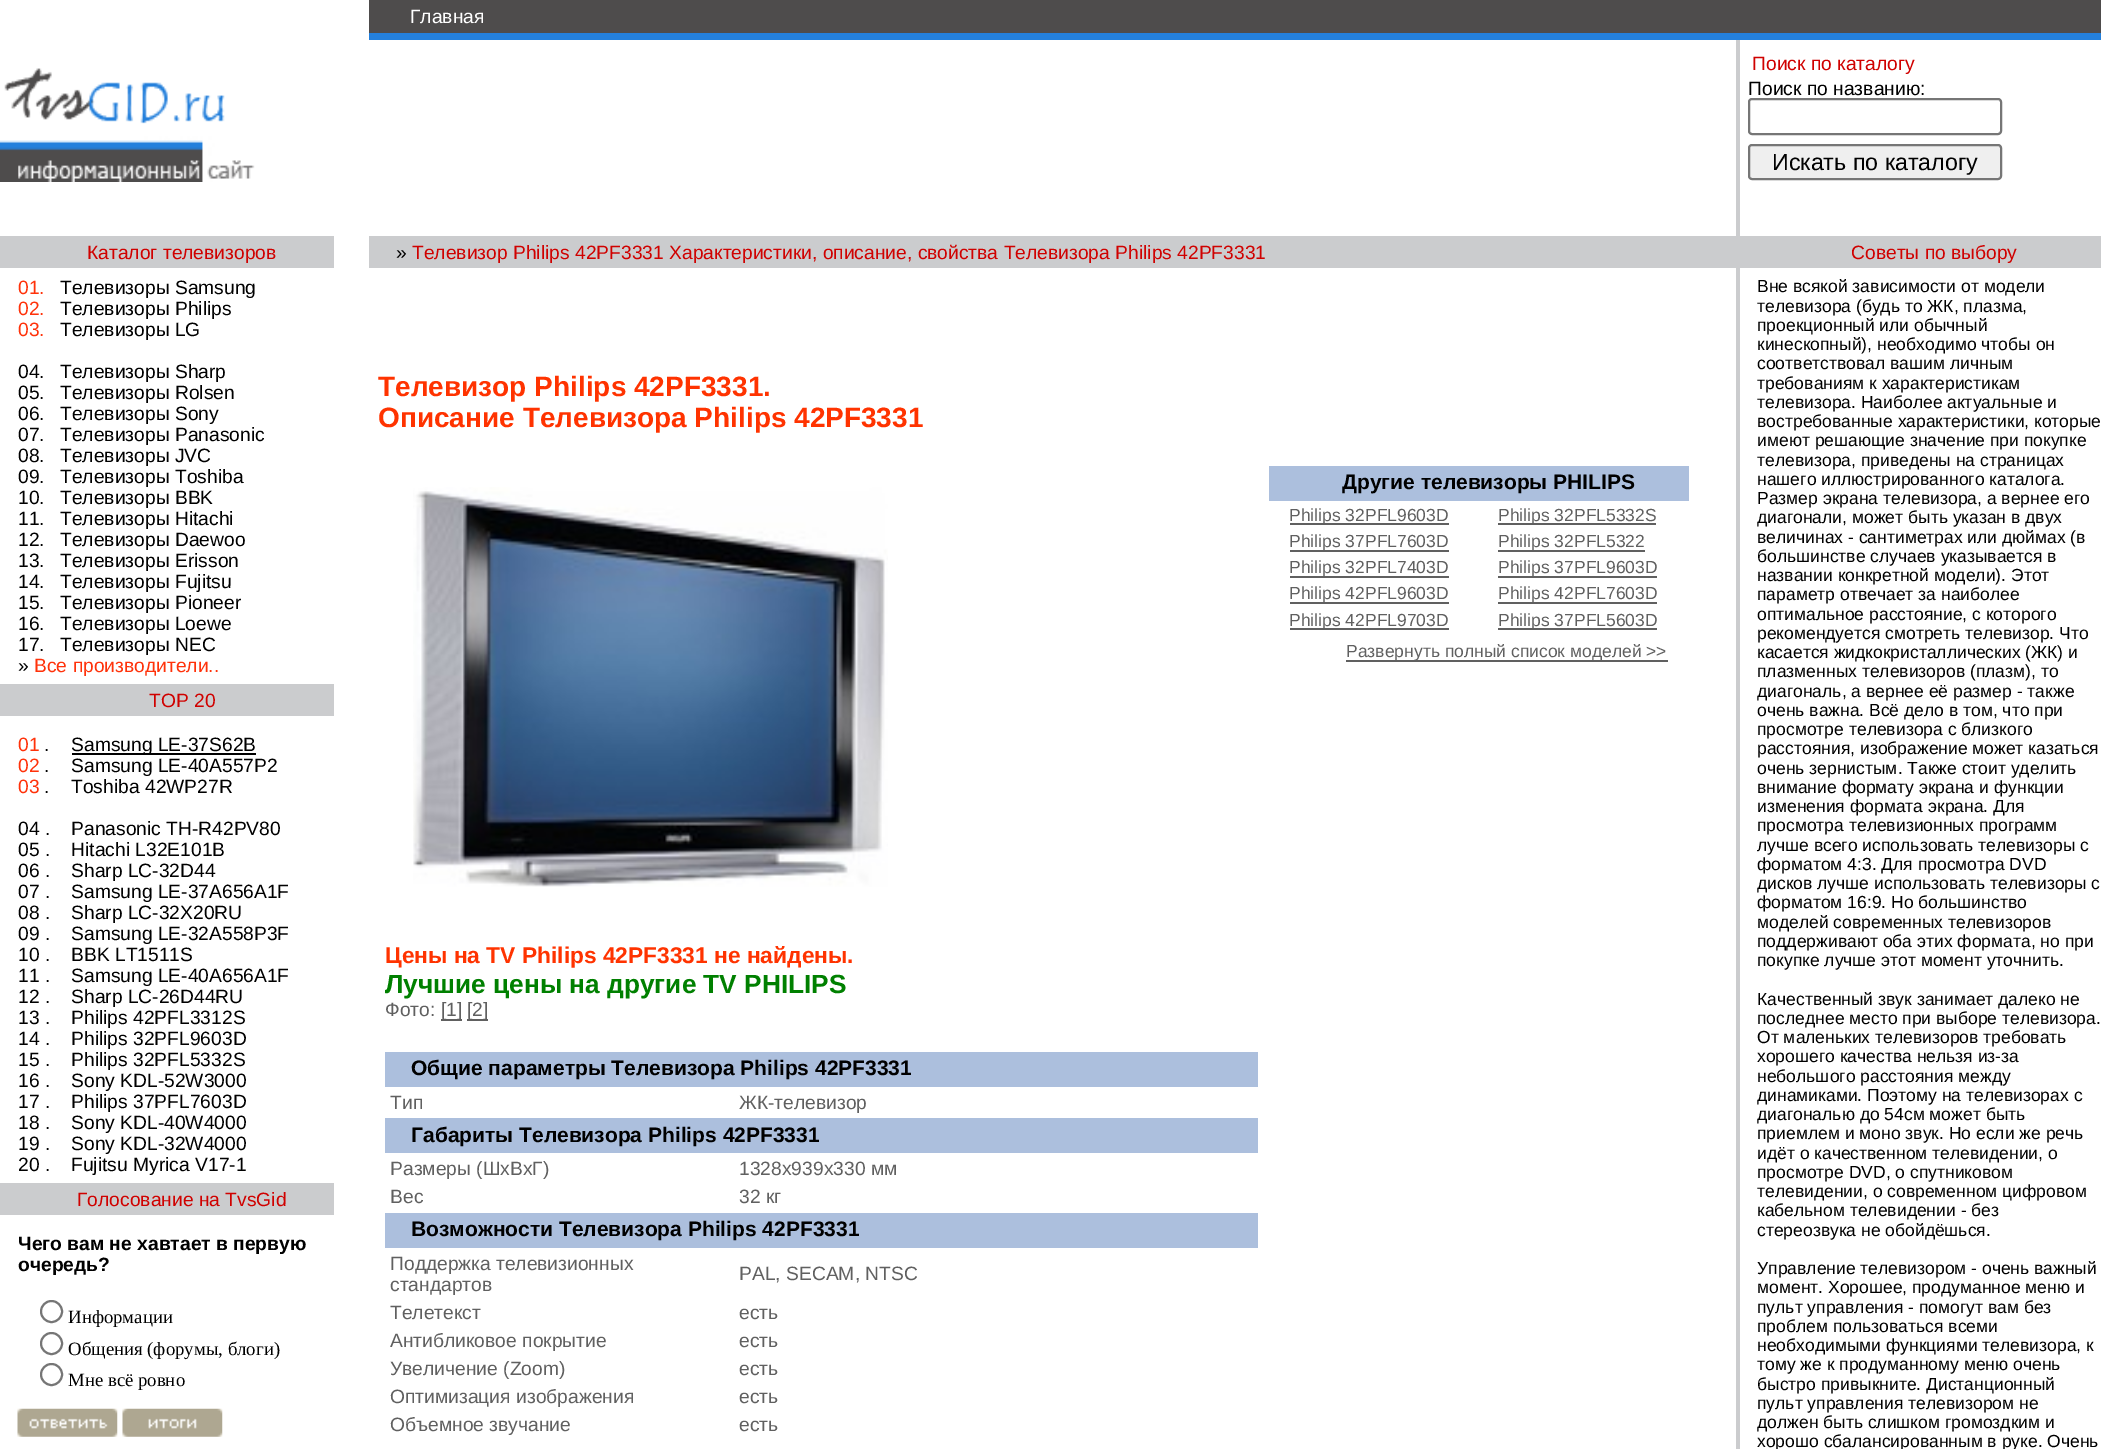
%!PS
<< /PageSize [2101 1449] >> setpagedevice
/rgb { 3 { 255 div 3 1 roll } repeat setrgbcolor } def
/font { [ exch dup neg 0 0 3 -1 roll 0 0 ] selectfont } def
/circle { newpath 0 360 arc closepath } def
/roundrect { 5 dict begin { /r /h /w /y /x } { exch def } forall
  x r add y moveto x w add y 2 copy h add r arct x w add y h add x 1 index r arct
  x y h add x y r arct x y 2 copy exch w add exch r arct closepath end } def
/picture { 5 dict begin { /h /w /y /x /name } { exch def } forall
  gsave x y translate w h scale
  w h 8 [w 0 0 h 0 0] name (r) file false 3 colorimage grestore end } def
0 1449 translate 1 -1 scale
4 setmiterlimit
255 255 255 rgb
0 0 2101 1449 rectfill
78 76 76 rgb
369 0 1732 33 rectfill
36 128 220 rgb
369 33 1732 7 rectfill
(img/1.rgb) 0 68 255 114 picture
203 204 206 rgb
1736 40 4 196 rectfill
118 118 118 rgb
2 setlinewidth
1749 99 252 35 3 roundrect stroke
239 239 239 rgb
1749 145 252 34 3 roundrect gsave fill grestore
118 118 118 rgb
stroke
[
  [0 236 334 32 203 204 206]
  [369 236 1732 32 203 204 206]
  [0 684 334 32 203 204 206]
  [72 753 184 2 0 0 0]
  [0 1183 334 32 203 204 206]
] { aload pop rgb rectfill } forall
118 118 118 rgb
51.5 1311.5 10.5 circle stroke
51.5 1343.5 10.5 circle stroke
51.5 1374.5 10.5 circle stroke
(img/2.rgb) 17 1408 101 29 picture
(img/3.rgb) 122 1408 101 29 picture
[
  [1269 466 420 35 172 191 221]
  [1290 523 159 2 96 96 96]
  [1498 523 158 2 96 96 96]
  [1290 550 159 2 96 96 96]
  [1498 550 147 2 96 96 96]
  [1290 576 159 2 96 96 96]
  [1498 576 159 2 96 96 96]
  [1290 602 159 2 96 96 96]
  [1498 602 159 2 96 96 96]
  [1290 628 159 2 96 96 96]
  [1498 628 159 2 96 96 96]
  [1346 660 322 2 96 96 96]
] { aload pop rgb rectfill } forall
(img/4.rgb) 413 487 475 400 picture
[
  [441 1019 21 2 96 96 96]
  [467 1019 21 2 96 96 96]
  [385 1052 873 35 172 191 221]
  [385 1118 873 35 172 191 221]
  [385 1213 873 35 172 191 221]
  [1736 268 4 1181 203 204 206]
] { aload pop rgb rectfill } forall
/LiberationSans-Regular 19.25 font
255 255 255 rgb
410 23 moveto (Главная) show
208 1 0 rgb
1752 70 moveto (Поиск по каталогу) show
0 0 0 rgb
1748 95 moveto (Поиск по названию:) show
/LiberationSans-Regular 23.25 font
1772 170 moveto (Искать по каталогу) show
/LiberationSans-Regular 19.25 font
208 1 0 rgb
87 259 moveto (Каталог телевизоров) show
0 0 0 rgb
396 259 moveto (») show
208 1 0 rgb
412 259 moveto (Телевизор Philips 42PF3331 Характеристики, описание, свойства Телевизора Philips 42PF3331) show
1851 259 moveto (Советы по выбору) show
255 50 10 rgb
18 294 moveto (01.) show
0 0 0 rgb
60 294 moveto (Телевизоры Samsung) show
255 50 10 rgb
18 315 moveto (02.) show
0 0 0 rgb
60 315 moveto (Телевизоры Philips) show
255 50 10 rgb
18 336 moveto (03.) show
0 0 0 rgb
[
  [(Телевизоры LG) 60 336]
  [(04.) 18 378]
  [(Телевизоры Sharp) 60 378]
  [(05.) 18 399]
  [(Телевизоры Rolsen) 60 399]
  [(06.) 18 420]
  [(Телевизоры Sony) 60 420]
  [(07.) 18 441]
  [(Телевизоры Panasonic) 60 441]
  [(08.) 18 462]
  [(Телевизоры JVC) 60 462]
  [(09.) 18 483]
  [(Телевизоры Toshiba) 60 483]
  [(10.) 18 504]
  [(Телевизоры BBK) 60 504]
  [(11.) 18 525]
  [(Телевизоры Hitachi) 60 525]
  [(12.) 18 546]
  [(Телевизоры Daewoo) 60 546]
  [(13.) 18 567]
  [(Телевизоры Erisson) 60 567]
  [(14.) 18 588]
  [(Телевизоры Fujitsu) 60 588]
  [(15.) 18 609]
  [(Телевизоры Pioneer) 60 609]
  [(16.) 18 630]
  [(Телевизоры Loewe) 60 630]
  [(17.) 18 651]
  [(Телевизоры NEC) 60 651]
  [(») 18 672]
] { aload pop moveto show } forall
255 50 10 rgb
34 672 moveto (Все производители..) show
208 1 0 rgb
149 707 moveto (TOP 20) show
255 50 10 rgb
18 751 moveto (01) show
0 0 0 rgb
44 751 moveto (.) show
71 751 moveto (Samsung LE-37S62B) show
255 50 10 rgb
18 772 moveto (02) show
0 0 0 rgb
44 772 moveto (.) show
71 772 moveto (Samsung LE-40A557P2) show
255 50 10 rgb
18 793 moveto (03) show
0 0 0 rgb
[
  [(.) 44 793]
  [(Toshiba 42WP27R) 71 793]
  [(04 .) 18 835]
  [(Panasonic TH-R42PV80) 71 835]
  [(05 .) 18 856]
  [(Hitachi L32E101B) 71 856]
  [(06 .) 18 877]
  [(Sharp LC-32D44) 71 877]
  [(07 .) 18 898]
  [(Samsung LE-37A656A1F) 71 898]
  [(08 .) 18 919]
  [(Sharp LC-32X20RU) 71 919]
  [(09 .) 18 940]
  [(Samsung LE-32A558P3F) 71 940]
  [(10 .) 18 961]
  [(BBK LT1511S) 71 961]
  [(11 .) 18 982]
  [(Samsung LE-40A656A1F) 71 982]
  [(12 .) 18 1003]
  [(Sharp LC-26D44RU) 71 1003]
  [(13 .) 18 1024]
  [(Philips 42PFL3312S) 71 1024]
  [(14 .) 18 1045]
  [(Philips 32PFL9603D) 71 1045]
  [(15 .) 18 1066]
  [(Philips 32PFL5332S) 71 1066]
  [(16 .) 18 1087]
  [(Sony KDL-52W3000) 71 1087]
  [(17 .) 18 1108]
  [(Philips 37PFL7603D) 71 1108]
  [(18 .) 18 1129]
  [(Sony KDL-40W4000) 71 1129]
  [(19 .) 18 1150]
  [(Sony KDL-32W4000) 71 1150]
  [(20 .) 18 1171]
  [(Fujitsu Myrica V17-1) 71 1171]
] { aload pop moveto show } forall
208 1 0 rgb
77 1206 moveto (Голосование на TvsGid) show
/LiberationSans-Bold 19.25 font
0 0 0 rgb
18 1250 moveto (Чего вам не хавтает в первую) show
18 1271 moveto (очередь?) show
/LiberationSerif-Regular 18.75 font
[
  [(Информации) 68 1323]
  [(Общения \(форумы, блоги\)) 68 1355]
  [(Мне всё ровно) 68 1386]
] { aload pop moveto show } forall
/LiberationSans-Bold 28 font
255 51 0 rgb
378 396 moveto (Телевизор Philips 42PF3331.) show
378 427 moveto (Описание Телевизора Philips 42PF3331) show
/LiberationSans-Bold 21 font
0 0 0 rgb
1342 489 moveto (Другие телевизоры PHILIPS) show
/LiberationSans-Regular 17.5 font
96 96 96 rgb
[
  [(Philips 32PFL9603D) 1289 521]
  [(Philips 32PFL5332S) 1498 521]
  [(Philips 37PFL7603D) 1289 547]
  [(Philips 32PFL5322) 1498 547]
  [(Philips 32PFL7403D) 1289 573]
  [(Philips 37PFL9603D) 1498 573]
  [(Philips 42PFL9603D) 1289 599]
  [(Philips 42PFL7603D) 1498 599]
  [(Philips 42PFL9703D) 1289 626]
  [(Philips 37PFL5603D) 1498 626]
  [(Развернуть полный список моделей >>) 1346 657]
] { aload pop moveto show } forall
/LiberationSans-Bold 22.75 font
255 51 0 rgb
385 963 moveto (Цены на TV Philips 42PF3331 не найдены.) show
/LiberationSans-Bold 26.25 font
0 128 0 rgb
385 993 moveto (Лучшие цены на другие TV PHILIPS) show
/LiberationSans-Regular 19.25 font
96 96 96 rgb
[
  [(Фото:) 385 1016]
  [([1]) 441 1016]
  [([2]) 467 1016]
] { aload pop moveto show } forall
/LiberationSans-Bold 21 font
0 0 0 rgb
411 1075 moveto (Общие параметры Телевизора Philips 42PF3331) show
/LiberationSans-Regular 19.25 font
96 96 96 rgb
390 1109 moveto (Тип) show
739 1109 moveto (ЖК-телевизор) show
/LiberationSans-Bold 21 font
0 0 0 rgb
411 1142 moveto (Габариты Телевизора Philips 42PF3331) show
/LiberationSans-Regular 19.25 font
96 96 96 rgb
[
  [(Размеры \(ШxВxГ\)) 390 1175]
  [(1328x939x330 мм) 739 1175]
  [(Вес) 390 1203]
  [(32 кг) 739 1203]
] { aload pop moveto show } forall
/LiberationSans-Bold 21 font
0 0 0 rgb
411 1236 moveto (Возможности Телевизора Philips 42PF3331) show
/LiberationSans-Regular 19.25 font
96 96 96 rgb
[
  [(Поддержка телевизионных) 390 1270]
  [(стандартов) 390 1291]
  [(PAL, SECAM, NTSC) 739 1280]
  [(Телетекст) 390 1319]
  [(есть) 739 1319]
  [(Антибликовое покрытие) 390 1347]
  [(есть) 739 1347]
  [(Увеличение \(Zoom\)) 390 1375]
  [(есть) 739 1375]
  [(Оптимизация изображения) 390 1403]
  [(есть) 739 1403]
  [(Объемное звучание) 390 1431]
  [(есть) 739 1431]
] { aload pop moveto show } forall
/LiberationSans-Regular 17.5 font
0 0 0 rgb
[
  [(Вне всякой зависимости от модели) 1757 292]
  [(телевизора \(будь то ЖК, плазма,) 1757 312]
  [(проекционный или обычный) 1757 331]
  [(кинескопный\), необходимо чтобы он) 1757 350]
  [(соответствовал вашим личным) 1757 369]
  [(требованиям к характеристикам) 1757 389]
  [(телевизора. Наиболее актуальные и) 1757 408]
  [(востребованные характеристики, которые) 1757 427]
  [(имеют решающие значение при покупке) 1757 446]
  [(телевизора, приведены на страницах) 1757 466]
  [(нашего иллюстрированного каталога.) 1757 485]
  [(Размер экрана телевизора, а вернее его) 1757 504]
  [(диагонали, может быть указан в двух) 1757 523]
  [(величинах - сантиметрах или дюймах \(в) 1757 543]
  [(большинстве случаев указывается в) 1757 562]
  [(названии конкретной модели\). Этот) 1757 581]
  [(параметр отвечает за наиболее) 1757 600]
  [(оптимальное расстояние, с которого) 1757 620]
  [(рекомендуется смотреть телевизор. Что) 1757 639]
  [(касается жидкокристаллических \(ЖК\) и) 1757 658]
  [(плазменных телевизоров \(плазм\), то) 1757 677]
  [(диагональ, а вернее её размер - также) 1757 697]
  [(очень важна. Всё дело в том, что при) 1757 716]
  [(просмотре телевизора с близкого) 1757 735]
  [(расстояния, изображение может казаться) 1757 754]
  [(очень зернистым. Также стоит уделить) 1757 774]
  [(внимание формату экрана и функции) 1757 793]
  [(изменения формата экрана. Для) 1757 812]
  [(просмотра телевизионных программ) 1757 831]
  [(лучше всего использовать телевизоры с) 1757 851]
  [(форматом 4:3. Для просмотра DVD) 1757 870]
  [(дисков лучше использовать телевизоры с) 1757 889]
  [(форматом 16:9. Но большинство) 1757 908]
  [(моделей современных телевизоров) 1757 928]
  [(поддерживают оба этих формата, но при) 1757 947]
  [(покупке лучше этот момент уточнить.) 1757 966]
  [(Качественный звук занимает далеко не) 1757 1005]
  [(последнее место при выборе телевизора.) 1757 1024]
  [(От маленьких телевизоров требовать) 1757 1043]
  [(хорошего качества нельзя из-за) 1757 1062]
  [(небольшого расстояния между) 1757 1082]
  [(динамиками. Поэтому на телевизорах с) 1757 1101]
  [(диагональю до 54см может быть) 1757 1120]
  [(приемлем и моно звук. Но если же речь) 1757 1139]
  [(идёт о качественном телевидении, о) 1757 1159]
  [(просмотре DVD, о спутниковом) 1757 1178]
  [(телевидении, о современном цифровом) 1757 1197]
  [(кабельном телевидении - без) 1757 1216]
  [(стереозвука не обойдёшься.) 1757 1236]
  [(Управление телевизором - очень важный) 1757 1274]
  [(момент. Хорошее, продуманное меню и) 1757 1293]
  [(пульт управления - помогут вам без) 1757 1313]
  [(проблем пользоваться всеми) 1757 1332]
  [(необходимыми функциями телевизора, к) 1757 1351]
  [(тому же к продуманному меню очень) 1757 1370]
  [(быстро привыкните. Дистанционный) 1757 1390]
  [(пульт управления телевизором не) 1757 1409]
  [(должен быть слишком громоздким и) 1757 1428]
  [(хорошо сбалансированным в руке. Очень) 1757 1447]
] { aload pop moveto show } forall
showpage
